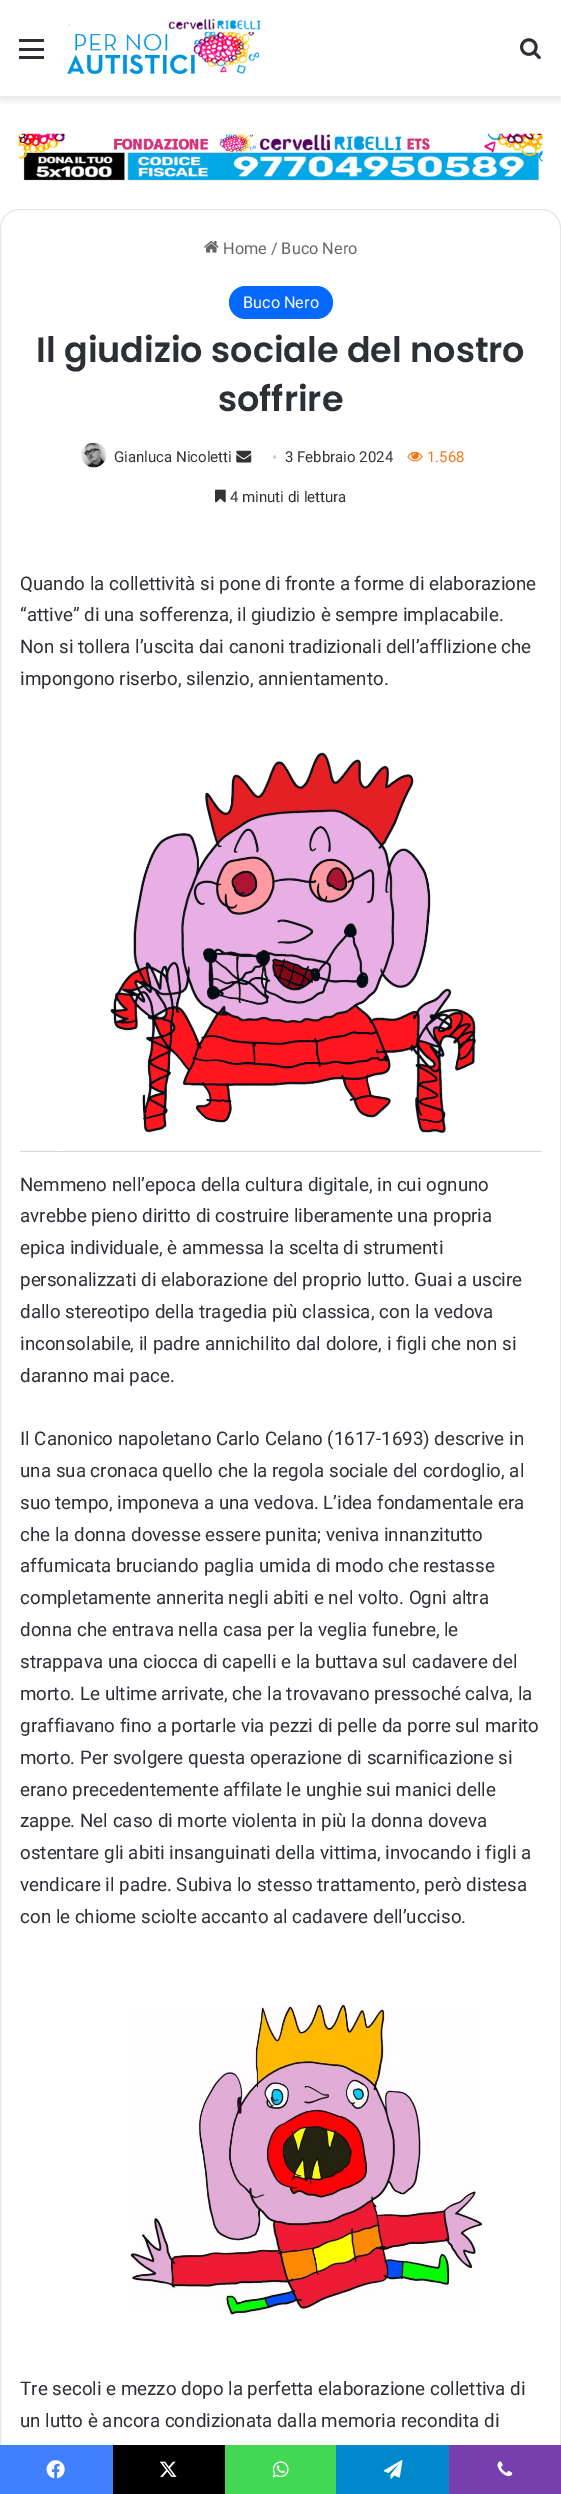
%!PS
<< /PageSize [561 2494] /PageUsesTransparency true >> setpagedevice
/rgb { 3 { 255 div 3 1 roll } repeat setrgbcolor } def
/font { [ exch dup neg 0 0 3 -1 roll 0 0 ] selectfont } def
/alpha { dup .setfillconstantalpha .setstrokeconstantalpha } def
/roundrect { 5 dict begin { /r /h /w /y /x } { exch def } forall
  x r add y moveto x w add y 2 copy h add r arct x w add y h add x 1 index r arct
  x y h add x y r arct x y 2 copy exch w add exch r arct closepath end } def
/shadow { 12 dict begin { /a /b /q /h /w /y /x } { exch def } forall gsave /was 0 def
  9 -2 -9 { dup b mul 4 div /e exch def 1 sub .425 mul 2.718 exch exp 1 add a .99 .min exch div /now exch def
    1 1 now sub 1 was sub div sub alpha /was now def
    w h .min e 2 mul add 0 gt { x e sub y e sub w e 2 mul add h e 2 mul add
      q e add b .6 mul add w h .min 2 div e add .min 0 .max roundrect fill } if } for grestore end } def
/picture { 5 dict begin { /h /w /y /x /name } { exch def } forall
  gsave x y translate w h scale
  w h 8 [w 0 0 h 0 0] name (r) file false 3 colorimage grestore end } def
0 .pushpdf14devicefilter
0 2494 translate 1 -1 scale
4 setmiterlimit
255 255 255 rgb
0 0 561 2494 rectfill
gsave
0 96 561 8 rectclip
0 0 0 rgb
0 4 561 96 0 4.5 0.1 shadow
grestore
[
  [19 48 25 3 44 47 52]
  [19 39 25 3 44 47 52]
  [19 56 25 3 44 47 52]
] { aload pop rgb rectfill } forall
(img/1.rgb) 67 19 194 55 picture
(img/2.rgb) 520 38 21 22 picture
(img/3.rgb) 18 133 525 51 picture
230 230 230 rgb
0.5 209.5 560 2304 18.5 roundrect stroke
(img/4.rgb) 204 241 15 12 picture
6 105 255 rgb
229 286 104 33 16.5 roundrect fill
(img/5.rgb) 81 442 25 26 picture
(img/6.rgb) 236 450 16 13 picture
(img/7.rgb) 407 451 16 11 picture
(img/8.rgb) 215 489 11 14 picture
(img/9.rgb) 20 752 522 400 picture
(img/10.rgb) 130 2002 354 314 picture
64 128 255 rgb
0 2445 113 49 rectfill
(img/11.rgb) 46 2460 19 19 picture
0 0 0 rgb
113 2445 112 49 rectfill
(img/12.rgb) 159 2461 18 16 picture
67 216 84 rgb
225 2445 111 49 rectfill
(img/13.rgb) 272 2461 17 17 picture
0 136 204 rgb
336 2445 113 49 rectfill
(img/14.rgb) 383 2460 20 19 picture
119 62 173 rgb
449 2445 112 49 rectfill
(img/15.rgb) 497 2461 16 16 picture
/Roboto-Regular 16.25 font
102 102 102 rgb
223 254 moveto (Home / Buco Nero) show
255 255 255 rgb
243 308 moveto (Buco Nero) show
/Poppins-SemiBold 35 font
44 47 52 rgb
36 362 moveto (Il giudizio sociale del nostro) show
218 411 moveto (soffrire) show
/Roboto-Regular 15 font
51 51 51 rgb
114 462 moveto (Gianluca Nicoletti) show
/LiberationSerif-Regular 15 font
204 204 204 rgb
272 462 moveto (•) show
/Roboto-Regular 15 font
51 51 51 rgb
285 462 moveto (3 Febbraio 2024) show
244 117 18 rgb
427 462 moveto (1.568) show
51 51 51 rgb
230 502 moveto (4 minuti di lettura) show
/Roboto-Regular 18.75 font
44 47 52 rgb
[
  [(Quando la collettività si pone di fronte a forme di elaborazione) 20 590]
  [(“attive” di una sofferenza, il giudizio è sempre implacabile.) 20 621]
  [(Non si tollera l’uscita dai canoni tradizionali dell’afflizione che) 20 653]
  [(impongono riserbo, silenzio, annientamento.) 20 685]
  [(Nemmeno nell’epoca della cultura digitale, in cui ognuno) 20 1191]
  [(avrebbe pieno diritto di costruire liberamente una propria) 20 1222]
  [(epica individuale, è ammessa la scelta di strumenti) 20 1254]
  [(personalizzati di elaborazione del proprio lutto. Guai a uscire) 20 1286]
  [(dallo stereotipo della tragedia più classica, con la vedova) 20 1318]
  [(inconsolabile, il padre annichilito dal dolore, i figli che non si) 20 1350]
  [(daranno mai pace.) 20 1382]
  [(Il Canonico napoletano Carlo Celano \(1617-1693\) descrive in) 20 1445]
  [(una sua cronaca quello che la regola sociale del cordoglio, al) 20 1477]
  [(suo tempo, imponeva a una vedova. L’idea fondamentale era) 20 1509]
  [(che la donna dovesse essere punita; veniva innanzitutto) 20 1541]
  [(affumicata bruciando paglia umida di modo che restasse) 20 1572]
  [(completamente annerita negli abiti e nel volto. Ogni altra) 20 1604]
  [(donna che entrava nella casa per la veglia funebre, le) 20 1636]
  [(strappava una ciocca di capelli e la buttava sul cadavere del) 20 1668]
  [(morto. Le ultime arrivate, che la trovavano pressoché calva, la) 20 1700]
  [(graffiavano fino a portarle via pezzi di pelle da porre sul marito) 20 1732]
  [(morto. Per svolgere questa operazione di scarnificazione si) 20 1764]
  [(erano precedentemente affilate le unghie sui manici delle) 20 1796]
  [(zappe. Nel caso di morte violenta in più la donna doveva) 20 1827]
  [(ostentare gli abiti insanguinati della vittima, invocando i figli a) 20 1859]
  [(vendicare il padre. Subiva lo stesso trattamento, però distesa) 20 1891]
  [(con le chiome sciolte accanto al cadavere dell’ucciso.) 20 1923]
  [(Tre secoli e mezzo dopo la perfetta elaborazione collettiva di) 20 2395]
  [(un lutto è ancora condizionata dalla memoria recondita di) 20 2427]
] { aload pop moveto show } forall
.poppdf14devicefilter showpage
